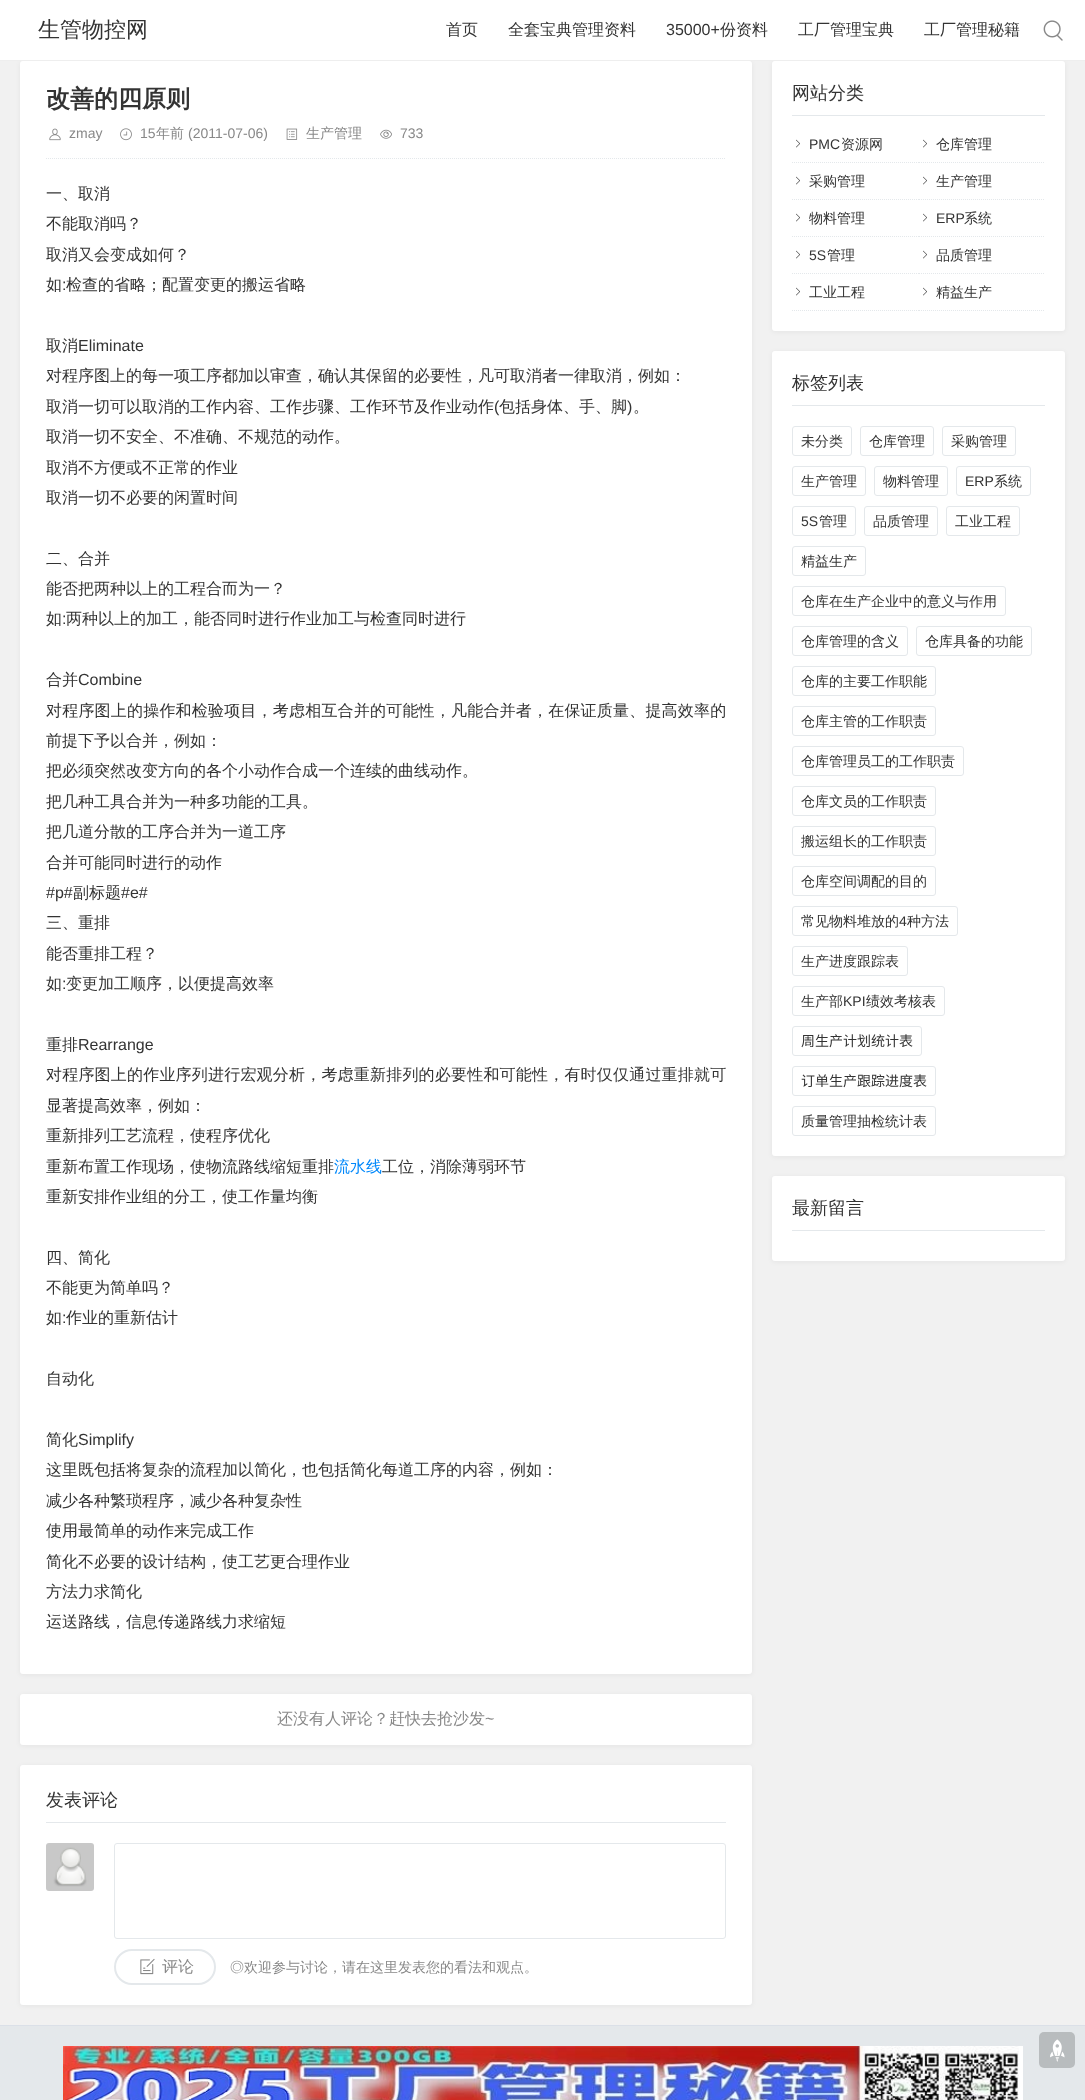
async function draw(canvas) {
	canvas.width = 1085;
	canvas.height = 2100;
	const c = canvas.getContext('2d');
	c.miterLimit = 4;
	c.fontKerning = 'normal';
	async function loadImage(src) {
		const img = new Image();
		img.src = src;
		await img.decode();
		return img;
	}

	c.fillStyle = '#e4e8eb';
	c.fillRect(0, 0, 1085, 2100);
	c.fillStyle = '#f1f1f1';
	c.fillRect(0, 61, 1085, 1964);
	c.fillStyle = '#0000000d';
	c.filter = 'blur(2.5px)';
	c.beginPath();
	c.roundRect(20, 62, 732, 1613, 3);
	c.fill();
	c.filter = 'none';
	c.filter = 'blur(2.5px)';
	c.beginPath();
	c.roundRect(772, 62, 293, 270, 3);
	c.fill();
	c.filter = 'none';
	c.fillStyle = '#fff';
	c.fillRect(0, 0, 1085, 60);
	c.fillStyle = '#eee';
	c.fillRect(0, 60, 1085, 1);
	c.font = '500 22px WenQuanYi Zen Hei';
	c.fillStyle = '#333';
	c.fillText('生管物控网', 38, 37);
	c.font = '500 16px WenQuanYi Zen Hei';
	c.fillText('首页', 446, 35);
	c.fillText('全套宝典管理资料', 508, 35);
	c.font = '16px Liberation Sans';
	c.fillText('35000+', 666, 35);
	c.font = '500 16px WenQuanYi Zen Hei';
	for (const [text, x, y] of [
		['份资料', 720, 35],
		['工厂管理宝典', 798, 35],
		['工厂管理秘籍', 924, 35],
	]) {
		c.fillText(text, x, y);
	}
	c.drawImage(await loadImage('img1.png'), 1043, 20, 20, 21);
	c.fillStyle = '#fff';
	c.beginPath();
	c.roundRect(20, 61, 732, 1613, 3);
	c.fill();
	c.font = 'bold 24px WenQuanYi Zen Hei';
	c.fillStyle = '#333';
	c.fillText('改善的四原则', 46, 107);
	c.drawImage(await loadImage('img2.png'), 49, 128, 12, 13);
	c.font = '14px Liberation Sans';
	c.fillStyle = '#888';
	c.fillText('zmay', 69, 138);
	c.drawImage(await loadImage('img3.png'), 120, 128, 12, 13);
	c.fillText('15', 140, 138);
	c.font = '500 14px WenQuanYi Zen Hei';
	c.fillText('年前', 156, 138);
	c.font = '14px Liberation Sans';
	c.fillText('(2011-07-06)', 188, 138);
	c.drawImage(await loadImage('img4.png'), 286, 128, 12, 12);
	c.font = '500 14px WenQuanYi Zen Hei';
	c.fillText('生产管理', 306, 138);
	c.drawImage(await loadImage('img5.png'), 380, 129, 12, 10);
	c.font = '14px Liberation Sans';
	c.fillText('733', 400, 138);
	c.beginPath();
	c.moveTo(46, 158.5);
	c.lineTo(726, 158.5);
	c.strokeStyle = '#e4e8eb';
	c.setLineDash([1, 1]);
	c.stroke();
	c.font = '500 16px WenQuanYi Zen Hei';
	c.fillStyle = '#333';
	for (const [text, x, y] of [
		['一、取消', 46, 199],
		['不能取消吗？', 46, 229],
		['取消又会变成如何？', 46, 260],
		['如', 46, 290],
	]) {
		c.fillText(text, x, y);
	}
	c.font = '16px Liberation Sans';
	c.fillText(':', 62, 290);
	c.font = '500 16px WenQuanYi Zen Hei';
	c.fillText('检查的省略；配置变更的搬运省略', 66, 290);
	c.fillText('取消', 46, 351);
	c.font = '16px Liberation Sans';
	c.fillText('Eliminate', 78, 351);
	c.font = '500 16px WenQuanYi Zen Hei';
	c.fillText('对程序图上的每一项工序都加以审查，确认其保留的必要性，凡可取消者一律取消，例如：', 46, 381);
	c.fillText('取消一切可以取消的工作内容、工作步骤、工作环节及作业动作', 46, 412);
	c.font = '16px Liberation Sans';
	c.fillText('(', 494, 412);
	c.font = '500 16px WenQuanYi Zen Hei';
	c.fillText('包括身体、手、脚', 499, 412);
	c.font = '16px Liberation Sans';
	c.fillText(')', 627, 412);
	c.font = '500 16px WenQuanYi Zen Hei';
	for (const [text, x, y] of [
		['。', 633, 412],
		['取消一切不安全、不准确、不规范的动作。', 46, 442],
		['取消不方便或不正常的作业', 46, 473],
		['取消一切不必要的闲置时间', 46, 503],
		['二、合并', 46, 564],
		['能否把两种以上的工程合而为一？', 46, 594],
		['如', 46, 624],
	]) {
		c.fillText(text, x, y);
	}
	c.font = '16px Liberation Sans';
	c.fillText(':', 62, 624);
	c.font = '500 16px WenQuanYi Zen Hei';
	c.fillText('两种以上的加工，能否同时进行作业加工与检查同时进行', 66, 624);
	c.fillText('合并', 46, 685);
	c.font = '16px Liberation Sans';
	c.fillText('Combine', 78, 685);
	c.letterSpacing = '0.2px';
	c.font = '500 16px WenQuanYi Zen Hei';
	c.fillText('对程序图上的操作和检验项目，考虑相互合并的可能性，凡能合并者，在保证质量、提高效率的', 46, 716);
	c.letterSpacing = '0px';
	for (const [text, x, y] of [
		['前提下予以合并，例如：', 46, 746],
		['把必须突然改变方向的各个小动作合成一个连续的曲线动作。', 46, 776],
		['把几种工具合并为一种多功能的工具。', 46, 807],
		['把几道分散的工序合并为一道工序', 46, 837],
		['合并可能同时进行的动作', 46, 868],
	]) {
		c.fillText(text, x, y);
	}
	c.font = '16px Liberation Sans';
	c.fillText('#p#', 46, 898);
	c.font = '500 16px WenQuanYi Zen Hei';
	c.fillText('副标题', 73, 898);
	c.font = '16px Liberation Sans';
	c.fillText('#e#', 121, 898);
	c.font = '500 16px WenQuanYi Zen Hei';
	for (const [text, x, y] of [
		['三、重排', 46, 928],
		['能否重排工程？', 46, 959],
		['如', 46, 989],
	]) {
		c.fillText(text, x, y);
	}
	c.font = '16px Liberation Sans';
	c.fillText(':', 62, 989);
	c.font = '500 16px WenQuanYi Zen Hei';
	c.fillText('变更加工顺序，以便提高效率', 66, 989);
	c.fillText('重排', 46, 1050);
	c.font = '16px Liberation Sans';
	c.fillText('Rearrange', 78, 1050);
	c.letterSpacing = '0.2px';
	c.font = '500 16px WenQuanYi Zen Hei';
	c.fillText('对程序图上的作业序列进行宏观分析，考虑重新排列的必要性和可能性，有时仅仅通过重排就可', 46, 1080);
	c.letterSpacing = '0px';
	for (const [text, x, y] of [
		['显著提高效率，例如：', 46, 1111],
		['重新排列工艺流程，使程序优化', 46, 1141],
		['重新布置工作现场，使物流路线缩短重排', 46, 1172],
	]) {
		c.fillText(text, x, y);
	}
	c.fillStyle = '#0188fb';
	c.fillText('流水线', 334, 1172);
	c.fillStyle = '#333';
	for (const [text, x, y] of [
		['工位，消除薄弱环节', 382, 1172],
		['重新安排作业组的分工，使工作量均衡', 46, 1202],
		['四、简化', 46, 1263],
		['不能更为简单吗？', 46, 1293],
		['如', 46, 1323],
	]) {
		c.fillText(text, x, y);
	}
	c.font = '16px Liberation Sans';
	c.fillText(':', 62, 1323);
	c.font = '500 16px WenQuanYi Zen Hei';
	for (const [text, x, y] of [
		['作业的重新估计', 66, 1323],
		['自动化', 46, 1384],
		['简化', 46, 1445],
	]) {
		c.fillText(text, x, y);
	}
	c.font = '16px Liberation Sans';
	c.fillText('Simplify', 78, 1445);
	c.font = '500 16px WenQuanYi Zen Hei';
	for (const [text, x, y] of [
		['这里既包括将复杂的流程加以简化，也包括简化每道工序的内容，例如：', 46, 1475],
		['减少各种繁琐程序，减少各种复杂性', 46, 1506],
		['使用最简单的动作来完成工作', 46, 1536],
		['简化不必要的设计结构，使工艺更合理作业', 46, 1567],
		['方法力求简化', 46, 1597],
		['运送路线，信息传递路线力求缩短', 46, 1627],
	]) {
		c.fillText(text, x, y);
	}
	c.fillStyle = '#0000000d';
	c.filter = 'blur(2.5px)';
	c.beginPath();
	c.roundRect(20, 1695, 732, 51, 3);
	c.fill();
	c.filter = 'none';
	c.fillStyle = '#fff';
	c.beginPath();
	c.roundRect(20, 1694, 732, 51, 3);
	c.fill();
	c.fillStyle = '#888';
	c.fillText('还没有人评论？赶快去抢沙发', 277, 1724);
	c.font = '16px Liberation Sans';
	c.fillText('~', 485, 1724);
	c.fillStyle = '#0000000d';
	c.filter = 'blur(2.5px)';
	c.beginPath();
	c.roundRect(20, 1766, 732, 240, 3);
	c.fill();
	c.filter = 'none';
	c.fillStyle = '#fff';
	c.beginPath();
	c.roundRect(20, 1765, 732, 240, 3);
	c.fill();
	c.fillStyle = '#e4e8eb';
	c.fillRect(46, 1822, 680, 1);
	c.font = '500 18px WenQuanYi Zen Hei';
	c.fillStyle = '#333';
	c.fillText('发表评论', 46, 1806);
	c.drawImage(await loadImage('img6.png'), 46, 1843, 48, 48);
	c.beginPath();
	c.roundRect(114.5, 1843.5, 611, 95, 2.5);
	c.setLineDash([]);
	c.stroke();
	c.beginPath();
	c.roundRect(115, 1950, 100, 34, 17);
	c.lineWidth = 2;
	c.stroke();
	c.drawImage(await loadImage('img7.png'), 140, 1958, 15, 17);
	c.font = '500 16px WenQuanYi Zen Hei';
	c.fillStyle = '#888';
	c.fillText('评论', 162, 1972);
	c.font = '500 14px WenQuanYi Zen Hei';
	c.fillText('◎欢迎参与讨论，请在这里发表您的看法和观点。', 230, 1972);
	c.fillStyle = '#fff';
	c.beginPath();
	c.roundRect(772, 61, 293, 270, 3);
	c.fill();
	c.fillStyle = '#e4e8eb';
	c.fillRect(792, 115, 253, 1);
	c.font = '500 18px WenQuanYi Zen Hei';
	c.fillStyle = '#333';
	c.fillText('网站分类', 792, 99);
	c.beginPath();
	c.moveTo(792, 162.5);
	c.lineTo(919, 162.5);
	c.lineWidth = 1;
	c.setLineDash([1, 1]);
	c.stroke();
	c.drawImage(await loadImage('img8.png'), 796, 139, 4, 9);
	c.font = '14px Liberation Sans';
	c.fillText('PMC', 809, 149);
	c.font = '500 14px WenQuanYi Zen Hei';
	c.fillText('资源网', 841, 149);
	c.beginPath();
	c.moveTo(919, 162.5);
	c.lineTo(1045, 162.5);
	c.stroke();
	c.drawImage(await loadImage('img8.png'), 923, 139, 4, 9);
	c.fillText('仓库管理', 936, 149);
	c.beginPath();
	c.moveTo(792, 199.5);
	c.lineTo(919, 199.5);
	c.stroke();
	c.drawImage(await loadImage('img8.png'), 796, 176, 4, 9);
	c.fillText('采购管理', 809, 186);
	c.beginPath();
	c.moveTo(919, 199.5);
	c.lineTo(1045, 199.5);
	c.stroke();
	c.drawImage(await loadImage('img8.png'), 923, 176, 4, 9);
	c.fillText('生产管理', 936, 186);
	c.beginPath();
	c.moveTo(792, 236.5);
	c.lineTo(919, 236.5);
	c.stroke();
	c.drawImage(await loadImage('img8.png'), 796, 213, 4, 9);
	c.fillText('物料管理', 809, 223);
	c.beginPath();
	c.moveTo(919, 236.5);
	c.lineTo(1045, 236.5);
	c.stroke();
	c.drawImage(await loadImage('img8.png'), 923, 213, 4, 9);
	c.font = '14px Liberation Sans';
	c.fillText('ERP', 936, 223);
	c.font = '500 14px WenQuanYi Zen Hei';
	c.fillText('系统', 964, 223);
	c.beginPath();
	c.moveTo(792, 273.5);
	c.lineTo(919, 273.5);
	c.stroke();
	c.drawImage(await loadImage('img8.png'), 796, 250, 4, 9);
	c.font = '14px Liberation Sans';
	c.fillText('5S', 809, 260);
	c.font = '500 14px WenQuanYi Zen Hei';
	c.fillText('管理', 827, 260);
	c.beginPath();
	c.moveTo(919, 273.5);
	c.lineTo(1045, 273.5);
	c.stroke();
	c.drawImage(await loadImage('img8.png'), 923, 250, 4, 9);
	c.fillText('品质管理', 936, 260);
	c.beginPath();
	c.moveTo(792, 310.5);
	c.lineTo(919, 310.5);
	c.stroke();
	c.drawImage(await loadImage('img8.png'), 796, 287, 4, 9);
	c.fillText('工业工程', 809, 297);
	c.beginPath();
	c.moveTo(919, 310.5);
	c.lineTo(1045, 310.5);
	c.stroke();
	c.drawImage(await loadImage('img8.png'), 923, 287, 4, 9);
	c.fillText('精益生产', 936, 297);
	c.fillStyle = '#0000000d';
	c.filter = 'blur(2.5px)';
	c.beginPath();
	c.roundRect(772, 352, 293, 805, 3);
	c.fill();
	c.filter = 'none';
	c.fillStyle = '#fff';
	c.beginPath();
	c.roundRect(772, 351, 293, 805, 3);
	c.fill();
	c.fillStyle = '#e4e8eb';
	c.fillRect(792, 405, 253, 1);
	c.font = '500 18px WenQuanYi Zen Hei';
	c.fillStyle = '#333';
	c.fillText('标签列表', 792, 389);
	c.beginPath();
	c.roundRect(792.5, 426.5, 59, 29, 2.5);
	c.setLineDash([]);
	c.stroke();
	c.font = '500 14px WenQuanYi Zen Hei';
	c.fillText('未分类', 801, 446);
	c.beginPath();
	c.roundRect(860.5, 426.5, 73, 29, 2.5);
	c.stroke();
	c.fillText('仓库管理', 869, 446);
	c.beginPath();
	c.roundRect(942.5, 426.5, 73, 29, 2.5);
	c.stroke();
	c.fillText('采购管理', 951, 446);
	c.beginPath();
	c.roundRect(792.5, 466.5, 73, 29, 2.5);
	c.stroke();
	c.fillText('生产管理', 801, 486);
	c.beginPath();
	c.roundRect(874.5, 466.5, 73, 29, 2.5);
	c.stroke();
	c.fillText('物料管理', 883, 486);
	c.beginPath();
	c.roundRect(956.5, 466.5, 74, 29, 2.5);
	c.stroke();
	c.font = '14px Liberation Sans';
	c.fillText('ERP', 965, 486);
	c.font = '500 14px WenQuanYi Zen Hei';
	c.fillText('系统', 994, 486);
	c.beginPath();
	c.roundRect(792.5, 506.5, 63, 29, 2.5);
	c.stroke();
	c.font = '14px Liberation Sans';
	c.fillText('5S', 801, 526);
	c.font = '500 14px WenQuanYi Zen Hei';
	c.fillText('管理', 819, 526);
	c.beginPath();
	c.roundRect(864.5, 506.5, 73, 29, 2.5);
	c.stroke();
	c.fillText('品质管理', 873, 526);
	c.beginPath();
	c.roundRect(946.5, 506.5, 73, 29, 2.5);
	c.stroke();
	c.fillText('工业工程', 955, 526);
	c.beginPath();
	c.roundRect(792.5, 546.5, 73, 29, 2.5);
	c.stroke();
	c.fillText('精益生产', 801, 566);
	c.beginPath();
	c.roundRect(792.5, 586.5, 213, 29, 2.5);
	c.stroke();
	c.fillText('仓库在生产企业中的意义与作用', 801, 606);
	c.beginPath();
	c.roundRect(792.5, 626.5, 115, 29, 2.5);
	c.stroke();
	c.fillText('仓库管理的含义', 801, 646);
	c.beginPath();
	c.roundRect(916.5, 626.5, 115, 29, 2.5);
	c.stroke();
	c.fillText('仓库具备的功能', 925, 646);
	c.beginPath();
	c.roundRect(792.5, 666.5, 143, 29, 2.5);
	c.stroke();
	c.fillText('仓库的主要工作职能', 801, 686);
	c.beginPath();
	c.roundRect(792.5, 706.5, 143, 29, 2.5);
	c.stroke();
	c.fillText('仓库主管的工作职责', 801, 726);
	c.beginPath();
	c.roundRect(792.5, 746.5, 171, 29, 2.5);
	c.stroke();
	c.fillText('仓库管理员工的工作职责', 801, 766);
	c.beginPath();
	c.roundRect(792.5, 786.5, 143, 29, 2.5);
	c.stroke();
	c.fillText('仓库文员的工作职责', 801, 806);
	c.beginPath();
	c.roundRect(792.5, 826.5, 143, 29, 2.5);
	c.stroke();
	c.fillText('搬运组长的工作职责', 801, 846);
	c.beginPath();
	c.roundRect(792.5, 866.5, 143, 29, 2.5);
	c.stroke();
	c.fillText('仓库空间调配的目的', 801, 886);
	c.beginPath();
	c.roundRect(792.5, 906.5, 165, 29, 2.5);
	c.stroke();
	c.fillText('常见物料堆放的', 801, 926);
	c.font = '14px Liberation Sans';
	c.fillText('4', 899, 926);
	c.font = '500 14px WenQuanYi Zen Hei';
	c.fillText('种方法', 907, 926);
	c.beginPath();
	c.roundRect(792.5, 946.5, 115, 29, 2.5);
	c.stroke();
	c.fillText('生产进度跟踪表', 801, 966);
	c.beginPath();
	c.roundRect(792.5, 986.5, 152, 29, 2.5);
	c.stroke();
	c.fillText('生产部', 801, 1006);
	c.font = '14px Liberation Sans';
	c.fillText('KPI', 843, 1006);
	c.font = '500 14px WenQuanYi Zen Hei';
	c.fillText('绩效考核表', 866, 1006);
	c.beginPath();
	c.roundRect(792.5, 1026.5, 129, 29, 2.5);
	c.stroke();
	c.font = '14px Noto Sans CJK SC';
	c.fillText('周生产计划统计表', 801, 1046);
	c.beginPath();
	c.roundRect(792.5, 1066.5, 143, 29, 2.5);
	c.stroke();
	c.fillText('订单生产跟踪进度表', 801, 1086);
	c.beginPath();
	c.roundRect(792.5, 1106.5, 143, 29, 2.5);
	c.stroke();
	c.font = '500 14px WenQuanYi Zen Hei';
	c.fillText('质量管理抽检统计表', 801, 1126);
	c.fillStyle = '#0000000d';
	c.filter = 'blur(2.5px)';
	c.beginPath();
	c.roundRect(772, 1177, 293, 85, 3);
	c.fill();
	c.filter = 'none';
	c.fillStyle = '#fff';
	c.beginPath();
	c.roundRect(772, 1176, 293, 85, 3);
	c.fill();
	c.fillStyle = '#e4e8eb';
	c.fillRect(792, 1230, 253, 1);
	c.font = '500 18px WenQuanYi Zen Hei';
	c.fillStyle = '#333';
	c.fillText('最新留言', 792, 1214);
	c.fillStyle = '#dbe0e8';
	c.fillRect(0, 2025, 1085, 1);
	c.drawImage(await loadImage('img9.png'), 63, 2046, 960, 54);
	c.fillStyle = '#b8bcbe';
	c.beginPath();
	c.roundRect(1039, 2032, 36, 36, 5);
	c.fill();
	c.drawImage(await loadImage('img10.png'), 1050, 2039, 15, 23);
}

draw(document.querySelector('canvas'));
